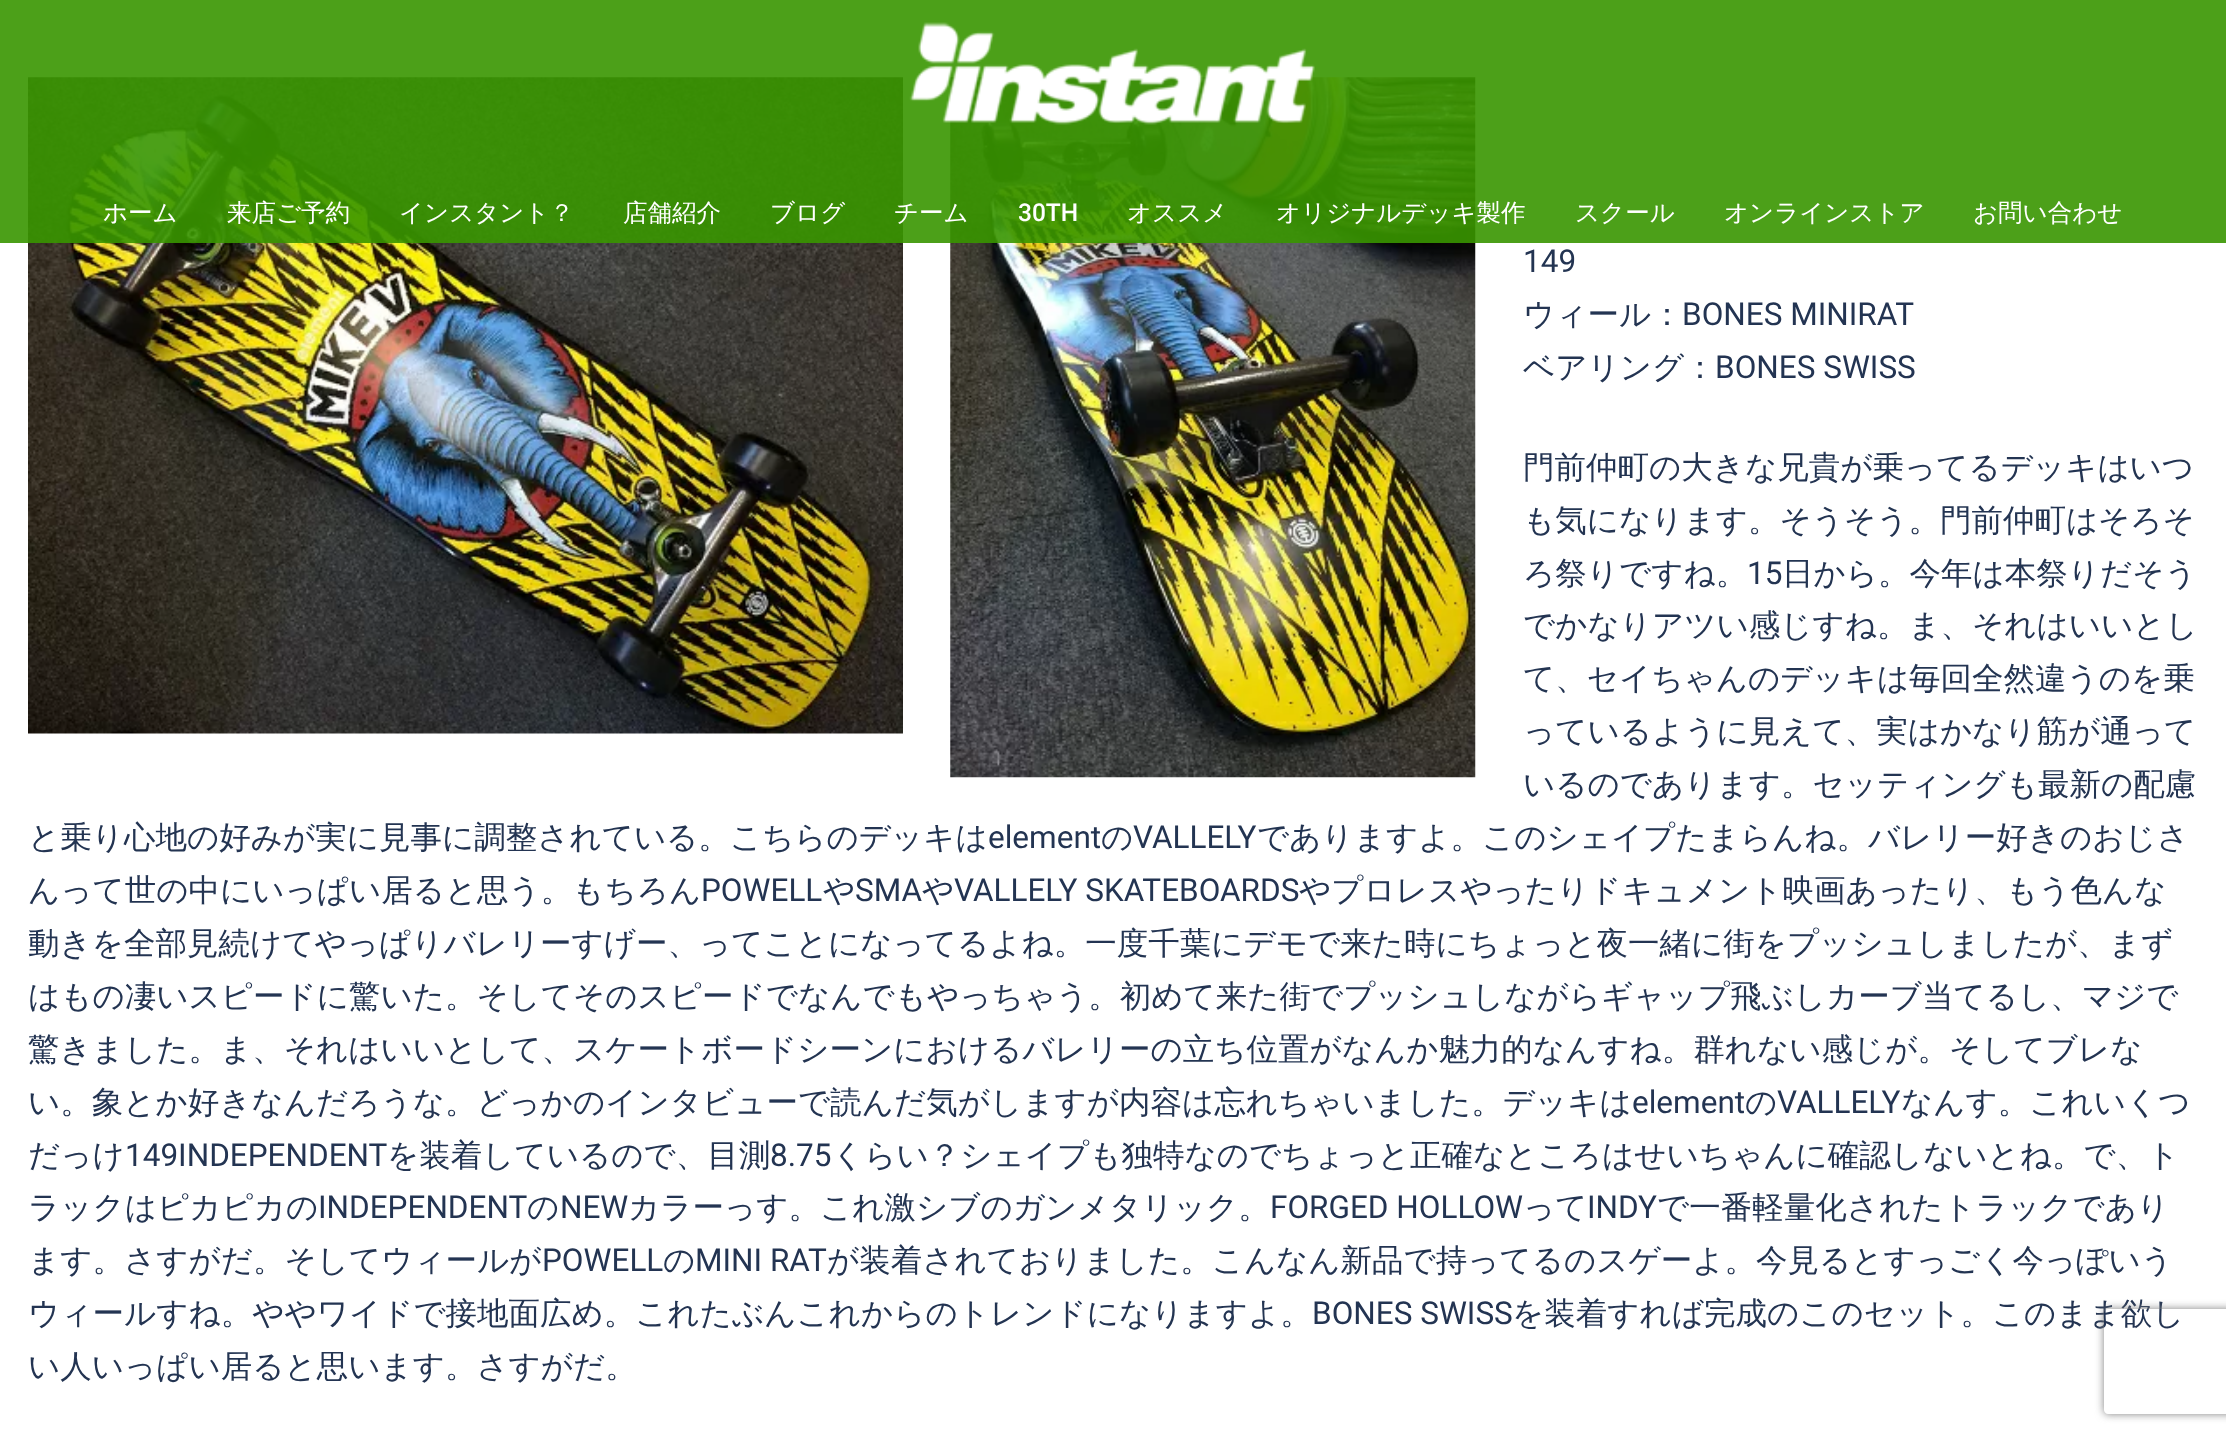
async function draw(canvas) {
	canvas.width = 2226;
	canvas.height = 1437;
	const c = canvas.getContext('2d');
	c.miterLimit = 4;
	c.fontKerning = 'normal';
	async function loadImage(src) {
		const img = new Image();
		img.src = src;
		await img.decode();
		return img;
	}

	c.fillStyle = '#fff';
	c.fillRect(0, 0, 2226, 1437);
	c.drawImage(await loadImage('img2.png'), 28, 77, 875, 657);
	c.drawImage(await loadImage('img3.png'), 950, 77, 526, 701);
	c.fillStyle = '#399600e6';
	c.fillRect(0, 0, 2226, 243);
	c.drawImage(await loadImage('img1.png'), 909, 22, 406, 103);
	c.font = '500 24.5px WenQuanYi Zen Hei';
	c.fillStyle = '#fff';
	for (const [text, x, y] of [
		['ホーム', 103, 221],
		['来店ご予約', 227, 221],
		['インスタント？', 399, 221],
		['店舗紹介', 623, 221],
		['ブログ', 770, 221],
		['チーム', 894, 221],
	]) {
		c.fillText(text, x, y);
	}
	c.font = '500 24.5px Roboto';
	c.fillText('30TH', 1018, 221);
	c.font = '500 24.5px WenQuanYi Zen Hei';
	for (const [text, x, y] of [
		['オススメ', 1127, 221],
		['オリジナルデッキ製作', 1276, 221],
		['スクール', 1575, 221],
		['オンラインストア', 1724, 221],
		['お問い合わせ', 1973, 221],
	]) {
		c.fillText(text, x, y);
	}
	c.font = '31.5px Roboto';
	c.fillStyle = '#233452';
	c.fillText('149', 1523, 272);
	c.font = '500 31.5px WenQuanYi Zen Hei';
	c.fillText('ウィール：', 1523, 325);
	c.font = '31.5px Roboto';
	c.fillText('BONES MINIRAT', 1682, 325);
	c.font = '500 31.5px WenQuanYi Zen Hei';
	c.fillText('ベアリング：', 1523, 378);
	c.font = '31.5px Roboto';
	c.fillText('BONES SWISS', 1715, 378);
	c.font = '500 31.5px WenQuanYi Zen Hei';
	for (const [text, x, y] of [
		['門前仲町の大きな兄貴が乗ってるデッキはいつ', 1523, 478],
		['も気になります。そうそう。門前仲町はそろそ', 1523, 531],
		['ろ祭りですね。', 1523, 584],
	]) {
		c.fillText(text, x, y);
	}
	c.font = '31.5px Roboto';
	c.fillText('15', 1747, 584);
	c.font = '500 31.5px WenQuanYi Zen Hei';
	for (const [text, x, y] of [
		['日から。今年は本祭りだそう', 1782, 584],
		['でかなりアツい感じすね。ま、それはいいとし', 1523, 636],
		['て、セイちゃんのデッキは毎回全然違うのを乗', 1523, 689],
		['っているように見えて、実はかなり筋が通って', 1523, 742],
		['いるのであります。セッティングも最新の配慮', 1523, 795],
		['と乗り心地の好みが実に見事に調整されている。こちらのデッキは', 28, 848],
	]) {
		c.fillText(text, x, y);
	}
	c.font = '31.5px Roboto';
	c.fillText('element', 988, 848);
	c.font = '500 31.5px WenQuanYi Zen Hei';
	c.fillText('の', 1101, 848);
	c.font = '31.5px Roboto';
	c.fillText('VALLELY', 1133, 848);
	c.font = '500 31.5px WenQuanYi Zen Hei';
	c.fillText('でありますよ。このシェイプたまらんね。バレリー好きのおじさ', 1257, 848);
	c.fillText('んって世の中にいっぱい居ると思う。もちろん', 28, 901);
	c.font = '31.5px Roboto';
	c.fillText('POWELL', 701, 901);
	c.font = '500 31.5px WenQuanYi Zen Hei';
	c.fillText('や', 823, 901);
	c.font = '31.5px Roboto';
	c.fillText('SMA', 855, 901);
	c.font = '500 31.5px WenQuanYi Zen Hei';
	c.fillText('や', 922, 901);
	c.font = '31.5px Roboto';
	c.fillText('VALLELY SKATEBOARDS', 954, 901);
	c.font = '500 31.5px WenQuanYi Zen Hei';
	for (const [text, x, y] of [
		['やプロレスやったりドキュメント映画あったり、もう色んな', 1299, 901],
		['動きを全部見続けてやっぱりバレリーすげー、ってことになってるよね。一度千葉にデモで来た時にちょっと夜一緒に街をプッシュしましたが、まず', 28, 954],
		['はもの凄いスピードに驚いた。そしてそのスピードでなんでもやっちゃう。初めて来た街でプッシュしながらギャップ飛ぶしカーブ当てるし、マジで', 28, 1007],
		['驚きました。ま、それはいいとして、スケートボードシーンにおけるバレリーの立ち位置がなんか魅力的なんすね。群れない感じが。そしてブレな', 28, 1060],
		['い。象とか好きなんだろうな。どっかのインタビューで読んだ気がしますが内容は忘れちゃいました。デッキは', 28, 1113],
	]) {
		c.fillText(text, x, y);
	}
	c.font = '31.5px Roboto';
	c.fillText('element', 1632, 1113);
	c.font = '500 31.5px WenQuanYi Zen Hei';
	c.fillText('の', 1745, 1113);
	c.font = '31.5px Roboto';
	c.fillText('VALLELY', 1777, 1113);
	c.font = '500 31.5px WenQuanYi Zen Hei';
	c.fillText('なんす。これいくつ', 1901, 1113);
	c.fillText('だっけ', 28, 1166);
	c.font = '31.5px Roboto';
	c.fillText('149INDEPENDENT', 125, 1166);
	c.font = '500 31.5px WenQuanYi Zen Hei';
	c.fillText('を装着しているので、目測', 387, 1166);
	c.font = '31.5px Roboto';
	c.fillText('8.75', 770, 1166);
	c.font = '500 31.5px WenQuanYi Zen Hei';
	c.fillText('くらい？シェイプも独特なのでちょっと正確なところはせいちゃんに確認しないとね。で、ト', 832, 1166);
	c.fillText('ラックはピカピカの', 28, 1218);
	c.font = '31.5px Roboto';
	c.fillText('INDEPENDENT', 318, 1218);
	c.font = '500 31.5px WenQuanYi Zen Hei';
	c.fillText('の', 527, 1218);
	c.font = '31.5px Roboto';
	c.fillText('NEW', 560, 1218);
	c.font = '500 31.5px WenQuanYi Zen Hei';
	c.fillText('カラーっす。これ激シブのガンメタリック。', 628, 1218);
	c.font = '31.5px Roboto';
	c.fillText('FORGED HOLLOW', 1270, 1218);
	c.font = '500 31.5px WenQuanYi Zen Hei';
	c.fillText('って', 1523, 1218);
	c.font = '31.5px Roboto';
	c.fillText('INDY', 1587, 1218);
	c.font = '500 31.5px WenQuanYi Zen Hei';
	c.fillText('で一番軽量化されたトラックであり', 1657, 1218);
	c.fillText('ます。さすがだ。そしてウィールが', 28, 1271);
	c.font = '31.5px Roboto';
	c.fillText('POWELL', 542, 1271);
	c.font = '500 31.5px WenQuanYi Zen Hei';
	c.fillText('の', 663, 1271);
	c.font = '31.5px Roboto';
	c.fillText('MINI RAT', 695, 1271);
	c.font = '500 31.5px WenQuanYi Zen Hei';
	c.fillText('が装着されておりました。こんなん新品で持ってるのスゲーよ。今見るとすっごく今っぽいう', 827, 1271);
	c.fillText('ウィールすね。ややワイドで接地面広め。これたぶんこれからのトレンドになりますよ。', 28, 1324);
	c.font = '31.5px Roboto';
	c.fillText('BONES SWISS', 1312, 1324);
	c.font = '500 31.5px WenQuanYi Zen Hei';
	c.fillText('を装着すれば完成のこのセット。このまま欲し', 1512, 1324);
	c.fillText('い人いっぱい居ると思います。さすがだ。', 28, 1377);
	c.save();
	c.beginPath();
	c.moveTo(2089, 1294);
	c.lineTo(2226, 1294);
	c.lineTo(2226, 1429);
	c.lineTo(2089, 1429);
	c.closePath();
	c.moveTo(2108, 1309);
	c.lineTo(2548, 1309);
	c.bezierCurveTo(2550, 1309, 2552, 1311, 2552, 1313);
	c.lineTo(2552, 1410);
	c.bezierCurveTo(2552, 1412, 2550, 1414, 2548, 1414);
	c.lineTo(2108, 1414);
	c.bezierCurveTo(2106, 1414, 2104, 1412, 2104, 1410);
	c.lineTo(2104, 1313);
	c.bezierCurveTo(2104, 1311, 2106, 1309, 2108, 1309);
	c.closePath();
	c.clip('evenodd');
	c.fillStyle = '#808080';
	c.filter = 'blur(4.5px)';
	c.beginPath();
	c.roundRect(2104, 1309, 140, 105, 4);
	c.fill();
	c.filter = 'none';
	c.restore();
}

draw(document.querySelector('canvas'));
